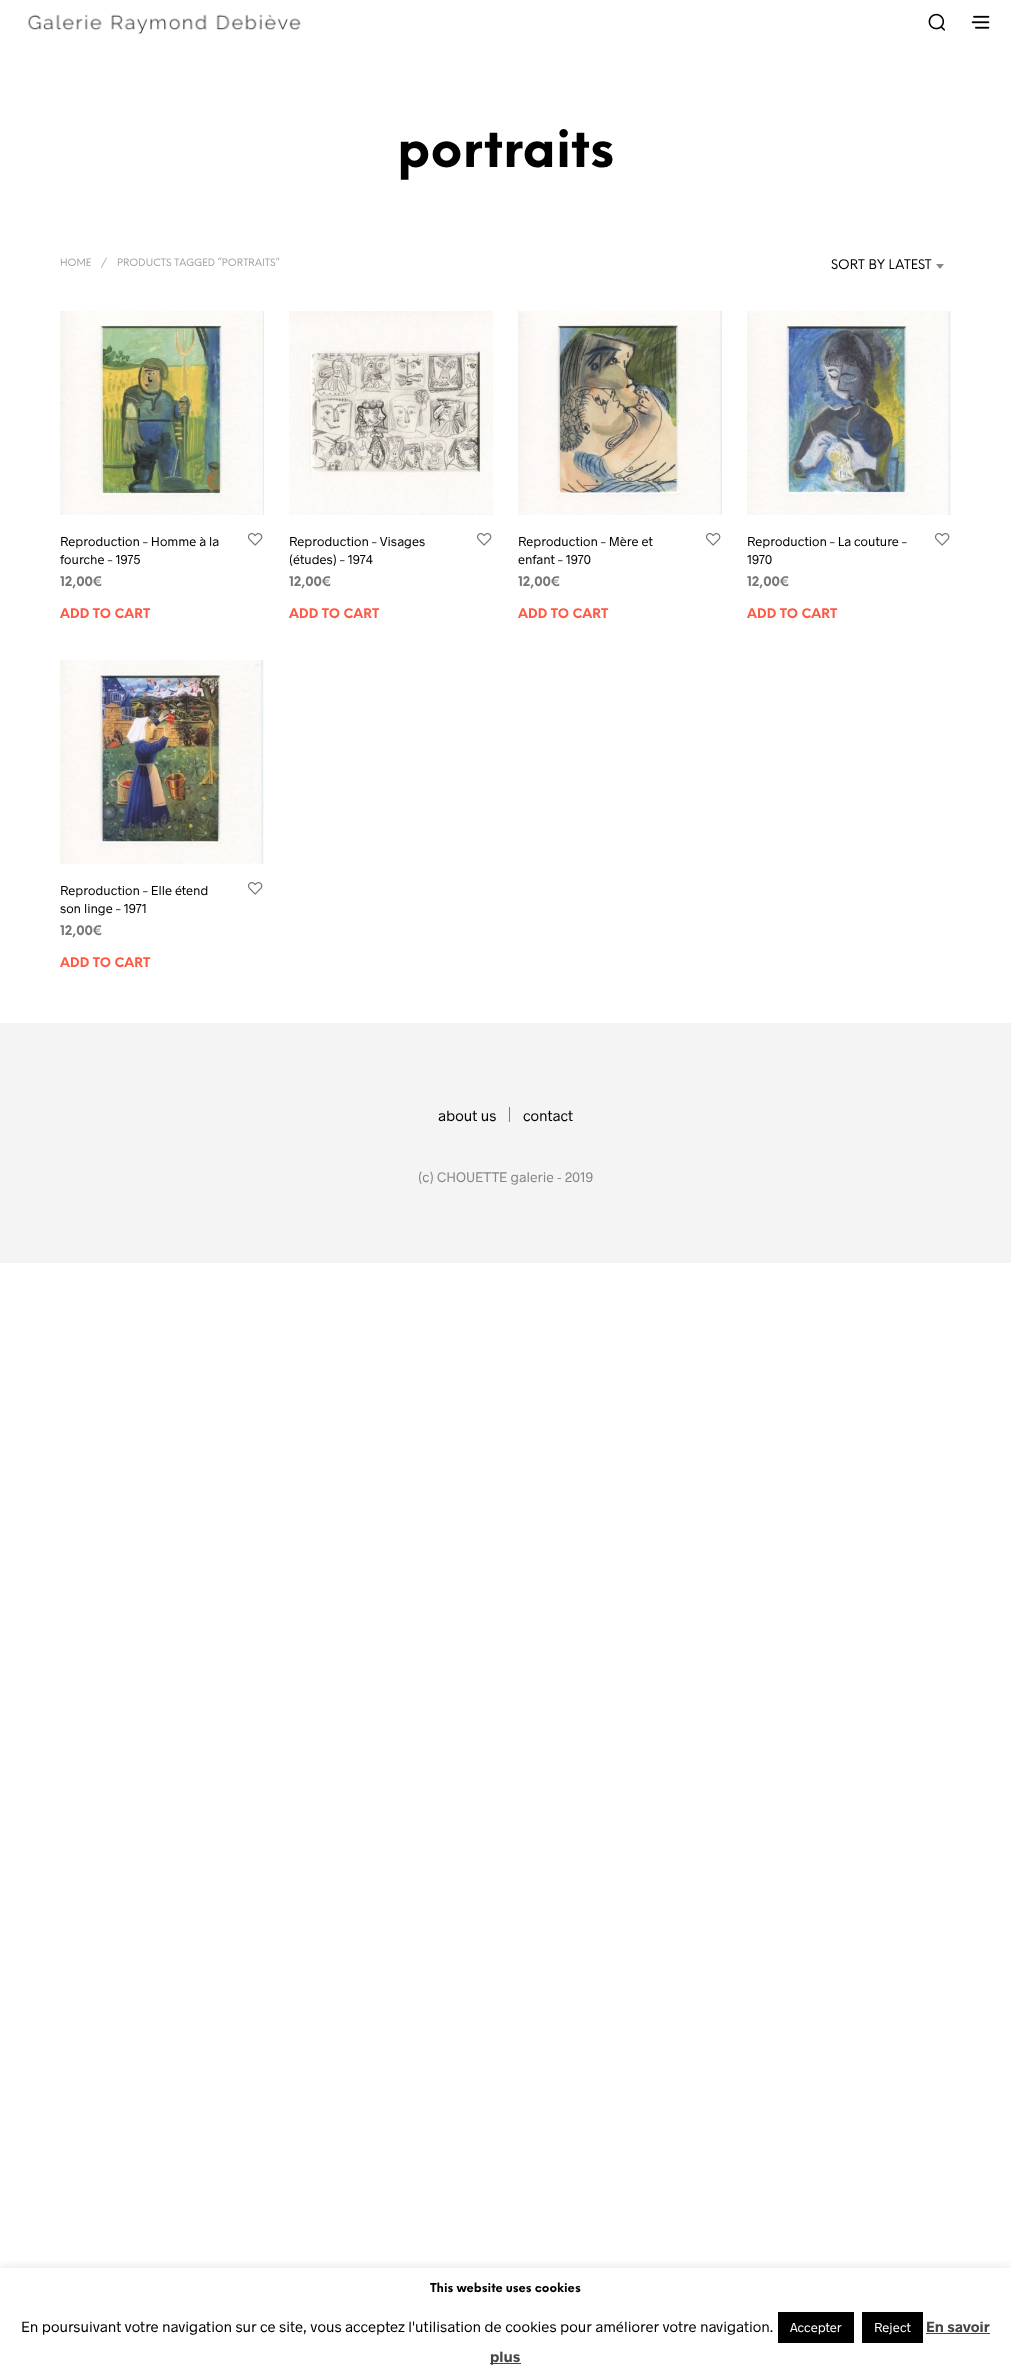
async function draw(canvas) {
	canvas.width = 1011;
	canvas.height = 2379;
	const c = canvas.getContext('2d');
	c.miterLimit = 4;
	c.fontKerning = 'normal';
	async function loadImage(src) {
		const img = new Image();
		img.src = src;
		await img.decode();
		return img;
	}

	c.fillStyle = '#fff';
	c.fillRect(0, 0, 1011, 2379);
	c.drawImage(await loadImage('img1.png'), 28, 14, 273, 20);
	c.drawImage(await loadImage('img2.png'), 928, 13, 17, 18);
	c.drawImage(await loadImage('img3.png'), 971, 15, 19, 14);
	c.font = 'bold 50.5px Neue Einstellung';
	c.fillStyle = '#000';
	c.fillText('portraits', 397, 167);
	c.font = '10px Neue Einstellung';
	c.fillStyle = '#a1a1a1';
	for (const [text, x, y] of [
		['HOME', 60, 266],
		['/', 101, 266],
		['PRODUCTS TAGGED “PORTRAITS”', 117, 266],
	]) {
		c.fillText(text, x, y);
	}
	c.font = '13px Neue Einstellung';
	c.fillStyle = '#000';
	c.fillText('SORT BY LATEST', 831, 269);
	c.fillStyle = '#888';
	c.beginPath();
	c.moveTo(936, 264);
	c.lineTo(944, 264);
	c.lineTo(940, 269);
	c.closePath();
	c.fill();
	c.drawImage(await loadImage('img4.png'), 60, 311, 204, 204);
	c.drawImage(await loadImage('img5.png'), 247, 533, 16, 13);
	c.font = '13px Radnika';
	c.fillStyle = '#000';
	c.fillText('Reproduction – Homme à la', 60, 546);
	c.fillText('fourche – 1975', 60, 564);
	c.font = 'bold 13px Neue Einstellung';
	c.fillStyle = '#767676';
	c.fillText('12,00€', 60, 586);
	c.fillStyle = '#ff5943';
	c.fillText('ADD TO CART', 60, 618);
	c.drawImage(await loadImage('img6.png'), 289, 311, 204, 204);
	c.drawImage(await loadImage('img5.png'), 476, 533, 16, 13);
	c.font = '13px Radnika';
	c.fillStyle = '#000';
	c.fillText('Reproduction – Visages', 289, 546);
	c.fillText('(études) – 1974', 289, 564);
	c.font = 'bold 13px Neue Einstellung';
	c.fillStyle = '#767676';
	c.fillText('12,00€', 289, 586);
	c.fillStyle = '#ff5943';
	c.fillText('ADD TO CART', 289, 618);
	c.drawImage(await loadImage('img7.png'), 518, 311, 204, 204);
	c.drawImage(await loadImage('img5.png'), 705, 533, 16, 13);
	c.font = '13px Radnika';
	c.fillStyle = '#000';
	c.fillText('Reproduction – Mère et', 518, 546);
	c.fillText('enfant – 1970', 518, 564);
	c.font = 'bold 13px Neue Einstellung';
	c.fillStyle = '#767676';
	c.fillText('12,00€', 518, 586);
	c.fillStyle = '#ff5943';
	c.fillText('ADD TO CART', 518, 618);
	c.drawImage(await loadImage('img8.png'), 747, 311, 204, 204);
	c.drawImage(await loadImage('img5.png'), 934, 533, 16, 13);
	c.font = '13px Radnika';
	c.fillStyle = '#000';
	c.fillText('Reproduction – La couture –', 747, 546);
	c.fillText('1970', 747, 564);
	c.font = 'bold 13px Neue Einstellung';
	c.fillStyle = '#767676';
	c.fillText('12,00€', 747, 586);
	c.fillStyle = '#ff5943';
	c.fillText('ADD TO CART', 747, 618);
	c.drawImage(await loadImage('img9.png'), 60, 660, 204, 204);
	c.drawImage(await loadImage('img5.png'), 247, 882, 16, 13);
	c.font = '13px Radnika';
	c.fillStyle = '#000';
	c.fillText('Reproduction – Elle étend', 60, 895);
	c.fillText('son linge – 1971', 60, 913);
	c.font = 'bold 13px Neue Einstellung';
	c.fillStyle = '#767676';
	c.fillText('12,00€', 60, 935);
	c.fillStyle = '#ff5943';
	c.fillText('ADD TO CART', 60, 967);
	c.fillStyle = '#f4f4f4';
	c.fillRect(0, 1023, 1011, 240);
	c.font = '15px Radnika';
	c.fillStyle = '#000';
	c.fillText('about us', 438, 1121);
	c.fillStyle = '#7a7a7a';
	c.fillRect(509, 1107, 1, 15);
	c.fillStyle = '#000';
	c.fillText('contact', 523, 1121);
	c.font = '14px Radnika';
	c.fillStyle = '#868686';
	c.fillText('(c) CHOUETTE galerie - 2019', 418, 1182);
	c.save();
	c.beginPath();
	c.rect(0, 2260, 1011, 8);
	c.clip();
	c.fillStyle = '#acabab4d';
	c.filter = 'blur(5px)';
	c.beginPath();
	c.rect(0, 2267, 1011, 111);
	c.fill();
	c.filter = 'none';
	c.restore();
	c.font = 'bold 12px Neue Einstellung';
	c.fillStyle = '#000';
	c.fillText('This website uses cookies', 430, 2292);
	c.font = '15px Radnika';
	c.fillText('En poursuivant votre navigation sur ce site, vous acceptez l\'utilisation de cookies pour améliorer votre navigation.', 21, 2332);
	c.fillRect(778, 2312, 76, 31);
	c.font = '13px Radnika';
	c.fillStyle = '#fff';
	c.fillText('Accepter', 790, 2332);
	c.fillStyle = '#000';
	c.fillRect(862, 2312, 61, 31);
	c.fillStyle = '#fff';
	c.fillText('Reject', 874, 2332);
	c.font = 'bold 15px Radnika';
	c.fillStyle = '#444';
	c.fillText('En savoir', 926, 2332);
	c.fillRect(926, 2333, 64, 1);
	c.fillRect(490, 2363, 31, 1);
	c.fillText('plus', 490, 2362);
}

draw(document.querySelector('canvas'));
